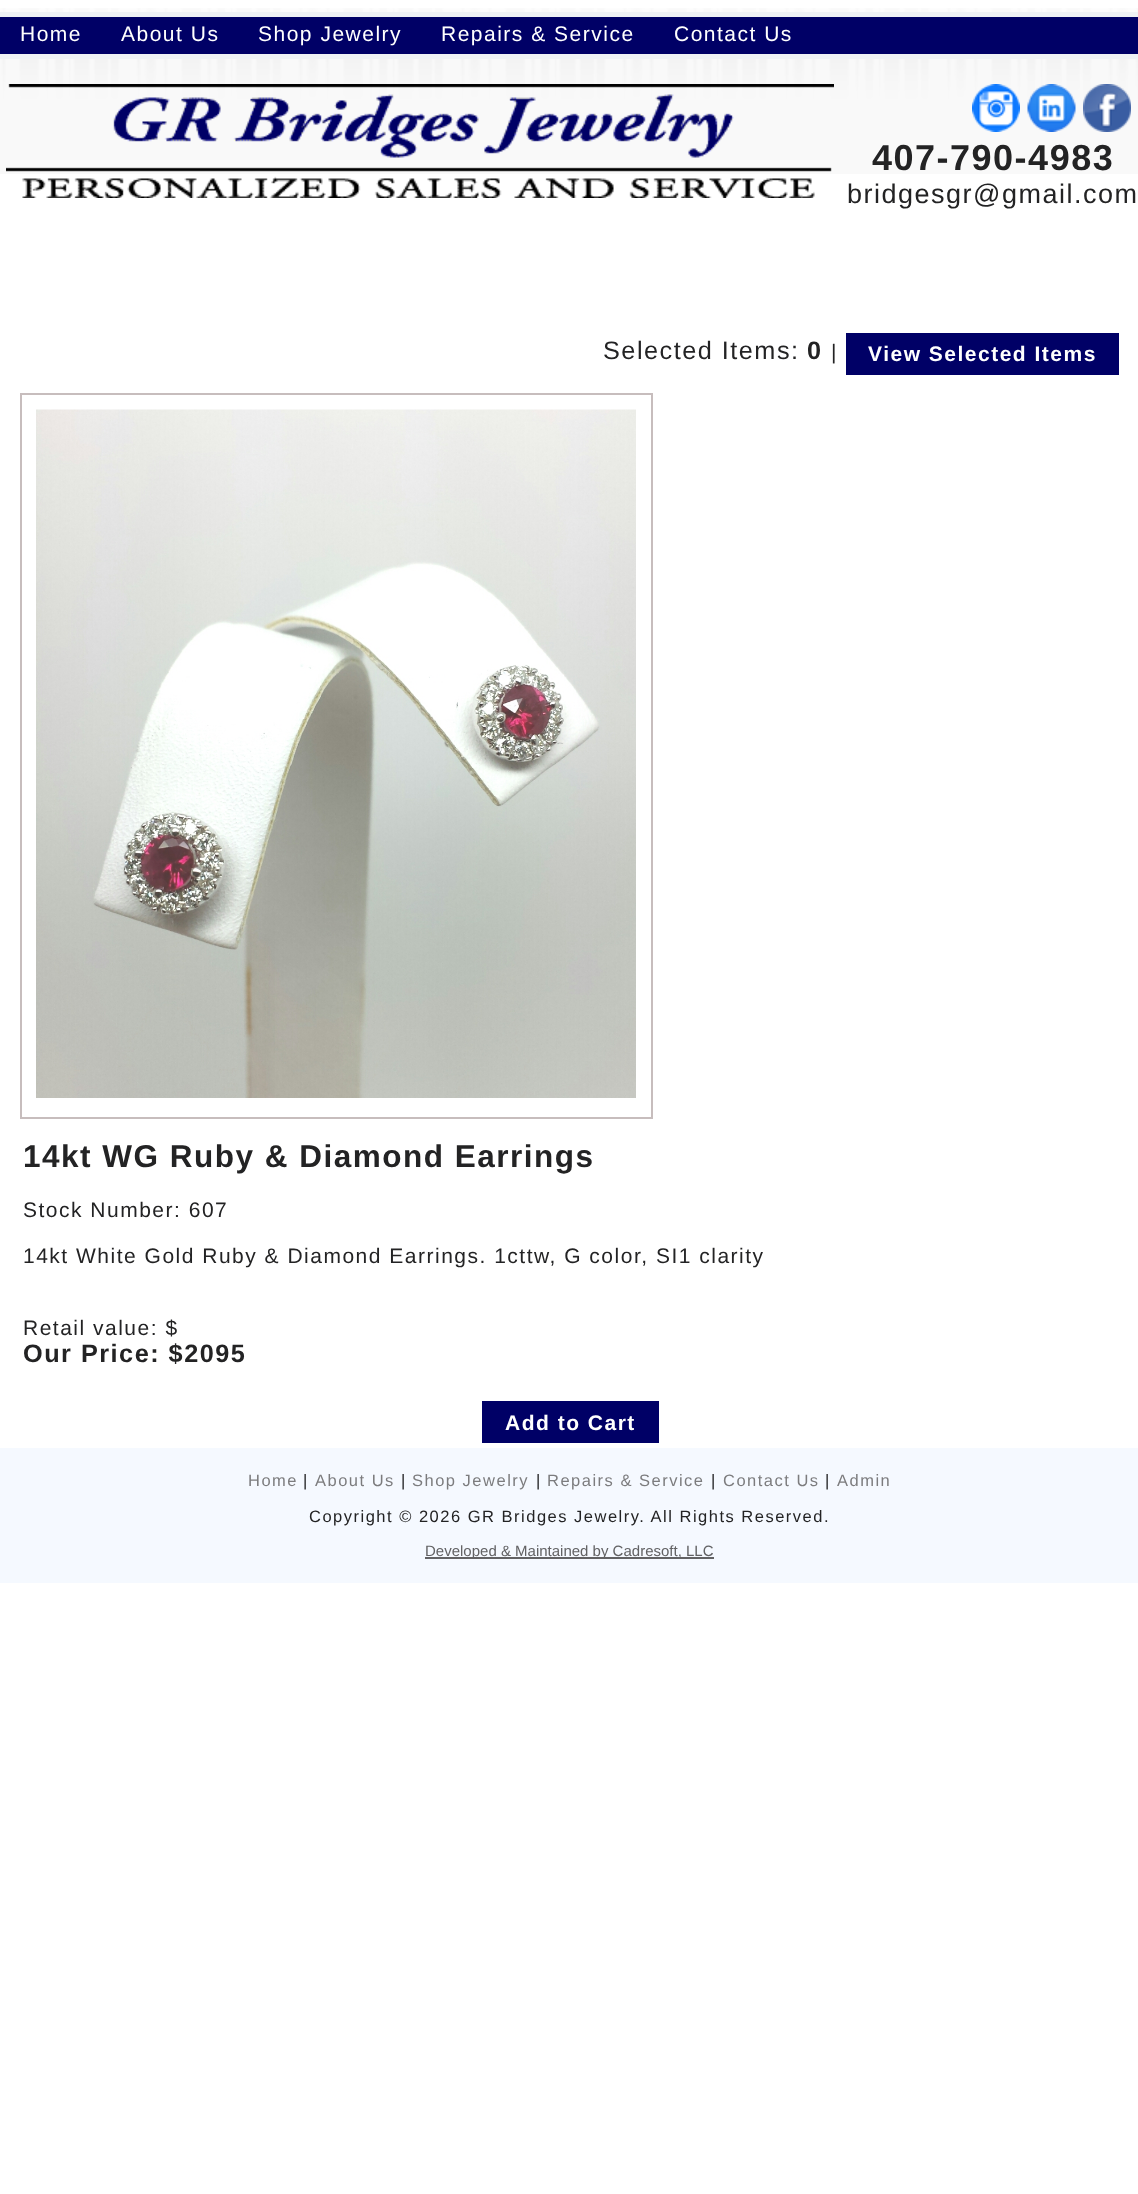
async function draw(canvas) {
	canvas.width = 1138;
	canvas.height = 2194;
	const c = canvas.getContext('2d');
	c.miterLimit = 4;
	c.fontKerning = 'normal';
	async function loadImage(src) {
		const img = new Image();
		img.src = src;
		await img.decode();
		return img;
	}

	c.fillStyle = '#fff';
	c.fillRect(0, 0, 1138, 2194);
	c.drawImage(await loadImage('img1.png'), 0, 8, 1138, 166);
	c.fillStyle = '#eff2f5';
	c.fillRect(0, 12, 1138, 47);
	c.fillStyle = '#006';
	c.fillRect(0, 17, 1138, 37);
	c.letterSpacing = '1.5px';
	c.font = '21px Liberation Sans';
	c.fillStyle = '#fff';
	for (const [text, x, y] of [
		['Home', 20, 41],
		['About Us', 121, 41],
		['Shop Jewelry', 258, 41],
		['Repairs & Service', 441, 41],
		['Contact Us', 674, 41],
	]) {
		c.fillText(text, x, y);
	}
	c.drawImage(await loadImage('img2.png'), 6, 84, 828, 114);
	c.drawImage(await loadImage('img3.png'), 972, 84, 48, 48);
	c.drawImage(await loadImage('img4.png'), 1027, 84, 49, 48);
	c.drawImage(await loadImage('img5.png'), 1083, 84, 48, 48);
	c.font = 'bold 36px Liberation Sans';
	c.fillStyle = '#232324';
	c.fillText('407-790-4983', 872, 170);
	c.font = '27px Liberation Sans';
	c.fillText('bridgesgr@gmail.com', 847, 203);
	c.font = '25.25px Liberation Sans';
	c.fillText('Selected Items:', 603, 359);
	c.font = 'bold 25.25px Liberation Sans';
	c.fillText('0', 807, 359);
	c.font = '21px Liberation Sans';
	c.fillText('|', 831, 359);
	c.fillStyle = '#006';
	c.fillRect(846, 333, 273, 42);
	c.font = 'bold 21px Liberation Sans';
	c.fillStyle = '#fff';
	c.fillText('View Selected Items', 868, 361);
	c.strokeStyle = '#c7bdbd';
	c.lineWidth = 2;
	c.strokeRect(21, 394, 631, 724);
	c.drawImage(await loadImage('img6.png'), 36, 409, 600, 689);
	c.font = 'bold 31.5px Liberation Sans';
	c.fillStyle = '#232324';
	c.fillText('14kt WG Ruby & Diamond Earrings', 23, 1167);
	c.font = '21px Liberation Sans';
	for (const [text, x, y] of [
		['Stock Number: 607', 23, 1217],
		['14kt White Gold Ruby & Diamond Earrings. 1cttw, G color, SI1 clarity', 23, 1263],
		['Retail value: $', 23, 1335],
	]) {
		c.fillText(text, x, y);
	}
	c.font = 'bold 25.25px Liberation Sans';
	c.fillText('Our Price: $2095', 23, 1362);
	c.fillStyle = '#006';
	c.fillRect(482, 1401, 177, 42);
	c.font = 'bold 21px Liberation Sans';
	c.fillStyle = '#fff';
	c.fillText('Add to Cart', 505, 1430);
	c.fillStyle = '#f5f9ff';
	c.fillRect(0, 1448, 1138, 135);
	c.font = '16.5px Liberation Sans';
	c.fillStyle = '#7c7c7e';
	c.fillText('Home', 248, 1486);
	c.fillStyle = '#232324';
	c.fillText('|', 303, 1486);
	c.fillStyle = '#7c7c7e';
	c.fillText('About Us', 315, 1486);
	c.fillStyle = '#232324';
	c.fillText('|', 401, 1486);
	c.fillStyle = '#7c7c7e';
	c.fillText('Shop Jewelry', 412, 1486);
	c.fillStyle = '#232324';
	c.fillText('|', 536, 1486);
	c.fillStyle = '#7c7c7e';
	c.fillText('Repairs & Service', 547, 1486);
	c.fillStyle = '#232324';
	c.fillText('|', 711, 1486);
	c.fillStyle = '#7c7c7e';
	c.fillText('Contact Us', 723, 1486);
	c.fillStyle = '#232324';
	c.fillText('|', 825, 1486);
	c.fillStyle = '#7c7c7e';
	c.fillText('Admin', 837, 1486);
	c.fillStyle = '#232324';
	c.fillText('Copyright © 2026 GR Bridges Jewelry. All Rights Reserved.', 309, 1522);
	c.fillStyle = '#626264';
	c.fillRect(425, 1557, 289, 2);
	c.letterSpacing = '0px';
	c.font = '15px Liberation Sans';
	c.fillText('Developed & Maintained by Cadresoft, LLC', 425, 1556);
}

draw(document.querySelector('canvas'));
